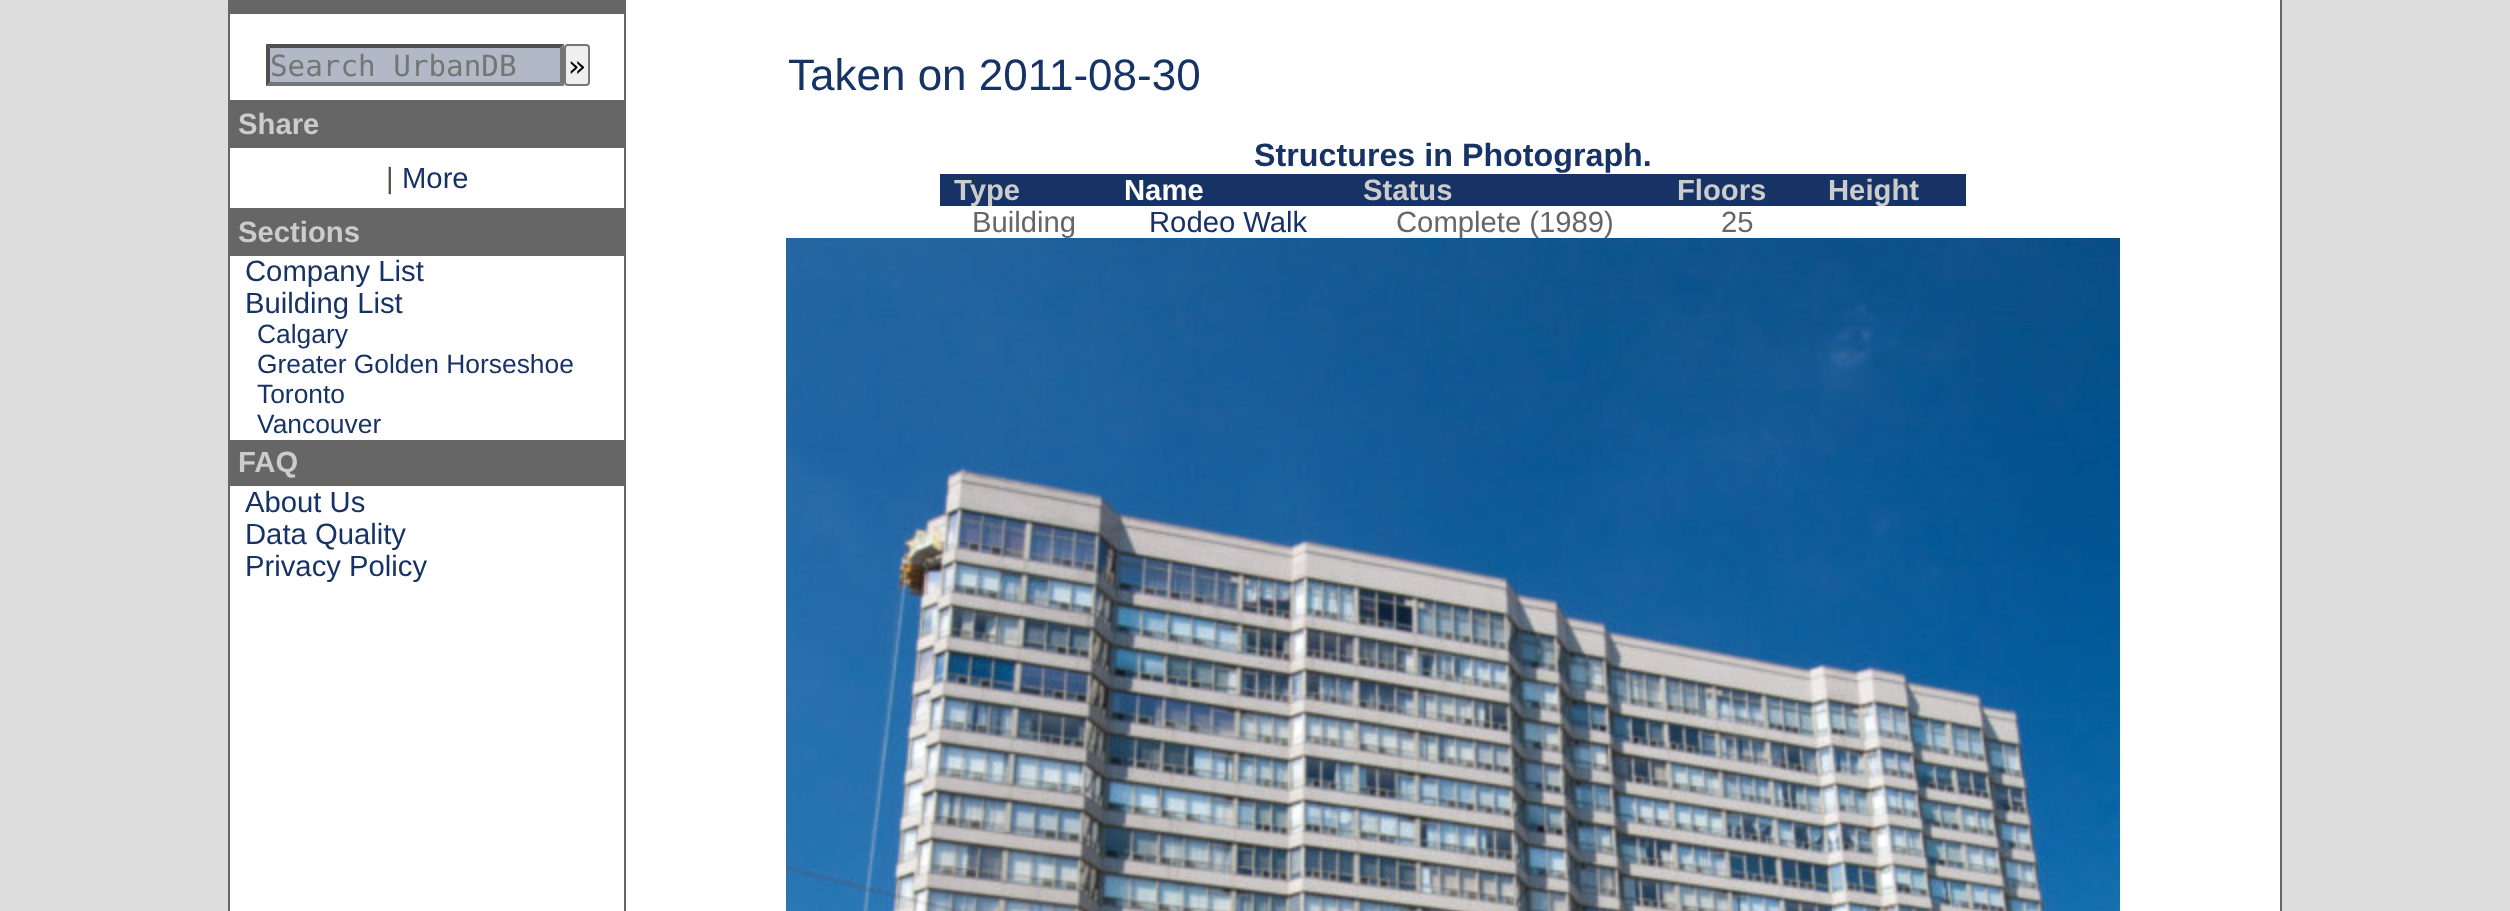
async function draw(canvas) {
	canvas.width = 2510;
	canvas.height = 911;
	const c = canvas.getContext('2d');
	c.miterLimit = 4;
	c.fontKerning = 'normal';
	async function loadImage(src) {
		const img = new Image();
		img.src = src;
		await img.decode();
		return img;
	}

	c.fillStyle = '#ddd';
	c.fillRect(0, 0, 2510, 911);
	for (const [x, y, w, h, color] of [
		[230, 14, 394, 897, '#fff'],
		[624, 0, 2, 911, '#666'],
		[228, 0, 2, 911, '#666'],
		[230, 0, 394, 14, '#666'],
		[266, 44, 298, 42, '#b2b9c6'],
	]) {
		c.fillStyle = color;
		c.fillRect(x, y, w, h);
	}
	c.fillStyle = '#4f4f4f';
	c.beginPath();
	c.moveTo(266, 44);
	c.lineTo(564, 44);
	c.lineTo(560, 48);
	c.lineTo(270, 48);
	c.closePath();
	c.fill();
	c.fillStyle = '#767676';
	c.beginPath();
	c.moveTo(564, 44);
	c.lineTo(564, 86);
	c.lineTo(560, 82);
	c.lineTo(560, 48);
	c.closePath();
	c.fill();
	c.beginPath();
	c.moveTo(564, 86);
	c.lineTo(266, 86);
	c.lineTo(270, 82);
	c.lineTo(560, 82);
	c.closePath();
	c.fill();
	c.fillStyle = '#4f4f4f';
	c.beginPath();
	c.moveTo(266, 86);
	c.lineTo(266, 44);
	c.lineTo(270, 48);
	c.lineTo(270, 82);
	c.closePath();
	c.fill();
	c.font = '29.25px DejaVu Sans Mono';
	c.fillStyle = '#757575';
	c.fillText('Search UrbanDB', 270, 76);
	c.fillStyle = '#efefef';
	c.beginPath();
	c.roundRect(565, 45, 24, 40, 3);
	c.fill();
	c.strokeStyle = '#767676';
	c.lineWidth = 2;
	c.stroke();
	c.fillStyle = '#000';
	c.fillText('»', 568, 76);
	c.fillStyle = '#666';
	c.fillRect(230, 100, 394, 48);
	c.font = 'bold 29.25px Liberation Sans';
	c.fillStyle = '#ccc';
	c.fillText('Share', 238, 134);
	c.font = '29.25px Liberation Sans';
	c.fillStyle = '#555753';
	c.fillText('|', 386, 188);
	c.fillStyle = '#173366';
	c.fillText('More', 402, 188);
	c.fillStyle = '#666';
	c.fillRect(230, 208, 394, 48);
	c.font = 'bold 29.25px Liberation Sans';
	c.fillStyle = '#ccc';
	c.fillText('Sections', 238, 242);
	c.font = '29.25px Liberation Sans';
	c.fillStyle = '#173366';
	c.fillText('Company List', 245, 281);
	c.fillText('Building List', 245, 313);
	c.font = '26.4px Liberation Sans';
	for (const [text, x, y] of [
		['Calgary', 257, 343],
		['Greater Golden Horseshoe', 257, 373],
		['Toronto', 257, 403],
		['Vancouver', 257, 433],
	]) {
		c.fillText(text, x, y);
	}
	c.fillStyle = '#666';
	c.fillRect(230, 440, 394, 46);
	c.font = 'bold 29.25px Liberation Sans';
	c.fillStyle = '#ccc';
	c.fillText('FAQ', 238, 472);
	c.font = '29.25px Liberation Sans';
	c.fillStyle = '#173366';
	for (const [text, x, y] of [
		['About Us', 245, 512],
		['Data Quality', 245, 544],
		['Privacy Policy', 245, 576],
	]) {
		c.fillText(text, x, y);
	}
	c.fillStyle = '#fff';
	c.fillRect(626, 0, 1654, 911);
	c.fillStyle = '#666';
	c.fillRect(2280, 0, 2, 911);
	c.font = '44px Liberation Sans';
	c.fillStyle = '#173366';
	c.fillText('Taken on 2011-08-30', 788, 90);
	c.font = 'bold 32.25px Liberation Sans';
	c.fillText('Structures in Photograph.', 1254, 166);
	c.fillRect(940, 174, 1026, 32);
	c.font = 'bold 29.25px Liberation Sans';
	c.fillStyle = '#ccc';
	c.fillText('Type', 954, 200);
	c.fillStyle = '#fff';
	c.fillText('Name', 1124, 200);
	c.fillStyle = '#ccc';
	for (const [text, x, y] of [
		['Status', 1363, 200],
		['Floors', 1677, 200],
		['Height', 1828, 200],
	]) {
		c.fillText(text, x, y);
	}
	c.font = '29.25px Liberation Sans';
	c.fillStyle = '#666';
	c.fillText('Building', 972, 232);
	c.fillStyle = '#173366';
	c.fillText('Rodeo Walk', 1149, 232);
	c.fillStyle = '#666';
	c.fillText('Complete (1989)', 1396, 232);
	c.fillText('25', 1721, 232);
	c.drawImage(await loadImage('img1.png'), 786, 238, 1334, 673);
}

draw(document.querySelector('canvas'));
